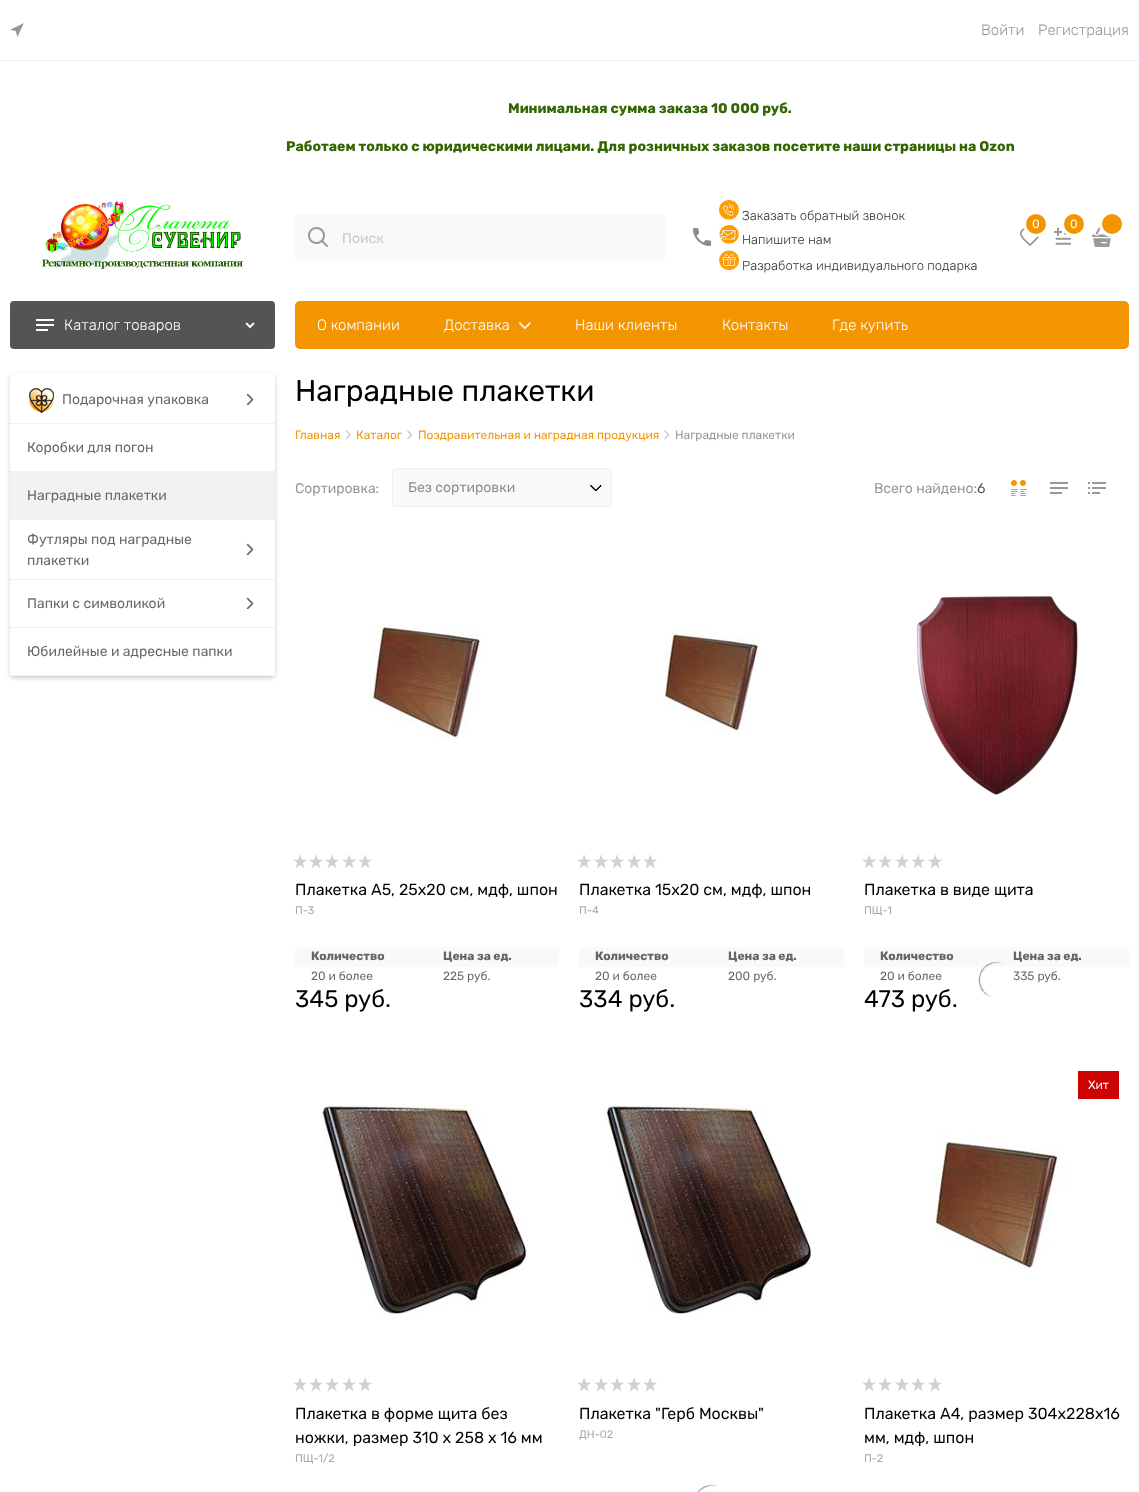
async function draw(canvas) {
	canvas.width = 1139;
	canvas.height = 1492;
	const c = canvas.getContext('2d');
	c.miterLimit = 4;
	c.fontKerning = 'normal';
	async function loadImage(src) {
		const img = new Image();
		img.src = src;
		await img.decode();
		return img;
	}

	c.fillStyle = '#fff';
	c.fillRect(0, 0, 1139, 1492);
	c.fillStyle = '#efeff4';
	c.fillRect(0, 60, 1139, 1);
	c.drawImage(await loadImage('img1.png'), 10, 23, 14, 14);
	c.font = '300 15px Rubik';
	c.fillStyle = '#94969b';
	c.fillText('Войти', 981, 35);
	c.fillText('Регистрация', 1038, 35);
	c.font = 'bold 14px Rubik';
	c.fillStyle = '#360';
	c.fillText('Минимальная сумма заказа 10 000 руб.', 508, 113);
	c.fillText('Работаем только с юридическими лицами. Для розничных заказов посетите наши страницы на Ozon', 286, 151);
	c.drawImage(await loadImage('img2.png'), 42, 201, 201, 68);
	c.fillStyle = '#f9f9f9';
	c.beginPath();
	c.roundRect(295, 214, 370, 47, 4);
	c.fill();
	c.drawImage(await loadImage('img3.png'), 308, 227, 20, 20);
	c.font = '14px Rubik';
	c.fillStyle = '#c8c7cc';
	c.fillText('Поиск', 342, 243);
	c.drawImage(await loadImage('img4.png'), 693, 228, 18, 18);
	c.drawImage(await loadImage('img5.png'), 719, 200, 20, 20);
	c.font = '300 13px Rubik';
	c.fillStyle = '#333';
	c.fillText('Заказать обратный звонок', 742, 220);
	c.drawImage(await loadImage('img6.png'), 719, 225, 20, 19);
	c.fillText('Напишите нам', 742, 244);
	c.drawImage(await loadImage('img7.png'), 719, 250, 20, 20);
	c.fillText('Разработка индивидуального подарка', 742, 270);
	c.drawImage(await loadImage('img8.png'), 1020, 228, 20, 18);
	c.fillStyle = '#f39500';
	c.beginPath();
	c.arc(1036, 224, 11.5, 0, 2 * Math.PI);
	c.fill();
	c.strokeStyle = '#fff';
	c.lineWidth = 3;
	c.stroke();
	c.font = '12px Rubik';
	c.fillStyle = '#fff';
	c.fillText('0', 1032, 228);
	c.drawImage(await loadImage('img9.png'), 1054, 227, 17, 18);
	c.fillStyle = '#f39500';
	c.beginPath();
	c.arc(1074, 224, 11.5, 0, 2 * Math.PI);
	c.fill();
	c.stroke();
	c.fillStyle = '#fff';
	c.fillText('0', 1070, 228);
	c.drawImage(await loadImage('img10.png'), 1092, 227, 20, 20);
	c.fillStyle = '#f39500';
	c.beginPath();
	c.arc(1112, 224, 11.5, 0, 2 * Math.PI);
	c.fill();
	c.stroke();
	c.fillStyle = '#535554';
	c.beginPath();
	c.roundRect(10, 301, 265, 48, 4);
	c.fill();
	c.drawImage(await loadImage('img11.png'), 36, 319, 18, 12);
	c.font = '300 15px Rubik';
	c.fillStyle = '#fff';
	c.fillText('Каталог товаров', 64, 330);
	c.drawImage(await loadImage('img12.png'), 245, 322, 10, 7);
	c.fillStyle = '#f39500';
	c.beginPath();
	c.roundRect(295, 301, 834, 48, 5);
	c.fill();
	c.fillStyle = '#fff';
	c.fillText('О компании', 317, 330);
	c.fillText('Доставка', 444, 330);
	c.drawImage(await loadImage('img13.png'), 519, 322, 12, 7);
	for (const [text, x, y] of [
		['Наши клиенты', 575, 330],
		['Контакты', 722, 330],
		['Где купить', 832, 330],
	]) {
		c.fillText(text, x, y);
	}
	c.fillStyle = '#00000033';
	c.filter = 'blur(2px)';
	c.beginPath();
	c.roundRect(10, 375, 265, 303, 4);
	c.fill();
	c.filter = 'none';
	c.fillStyle = '#fff';
	c.beginPath();
	c.roundRect(10, 373, 265, 303, 4);
	c.fill();
	c.fillStyle = '#efeff4';
	c.fillRect(10, 423, 265, 1);
	c.drawImage(await loadImage('img14.png'), 29, 387, 25, 26);
	c.font = '14px Rubik';
	c.fillStyle = '#666';
	c.fillText('Подарочная упаковка', 62, 404);
	c.drawImage(await loadImage('img15.png'), 246, 393, 8, 13);
	c.fillStyle = '#efeff4';
	c.fillRect(10, 471, 265, 1);
	c.fillStyle = '#666';
	c.fillText('Коробки для погон', 27, 452);
	c.fillStyle = '#efeff4';
	c.fillRect(10, 519, 265, 1);
	c.fillStyle = '#f2f2f2';
	c.fillRect(10, 472, 265, 47);
	c.fillStyle = '#666';
	c.fillText('Наградные плакетки', 27, 500);
	c.fillStyle = '#efeff4';
	c.fillRect(10, 579, 265, 1);
	c.fillStyle = '#666';
	c.fillText('Футляры под наградные', 27, 544);
	c.fillText('плакетки', 27, 565);
	c.drawImage(await loadImage('img16.png'), 246, 543, 8, 13);
	c.fillStyle = '#efeff4';
	c.fillRect(10, 627, 265, 1);
	c.fillStyle = '#666';
	c.fillText('Папки с символикой', 27, 608);
	c.drawImage(await loadImage('img16.png'), 246, 597, 8, 13);
	c.fillStyle = '#efeff4';
	c.fillRect(10, 675, 265, 1);
	c.fillStyle = '#fff';
	c.fillRect(10, 673, 265, 2);
	c.fillStyle = '#666';
	c.fillText('Юбилейные и адресные папки', 27, 656);
	c.font = '30px Rubik';
	c.fillStyle = '#000';
	c.fillText('Наградные плакетки', 295, 401);
	c.font = '12px Rubik';
	c.fillStyle = '#f39500';
	c.fillText('Главная', 295, 439);
	c.drawImage(await loadImage('img17.png'), 345, 430, 6, 9);
	c.fillText('Каталог', 356, 439);
	c.drawImage(await loadImage('img18.png'), 407, 430, 5, 10);
	c.fillText('Поздравительная и наградная продукция', 418, 439);
	c.drawImage(await loadImage('img19.png'), 664, 430, 5, 9);
	c.fillStyle = '#969494';
	c.fillText('Наградные плакетки', 675, 439);
	c.font = '14px Rubik';
	c.fillText('Сортировка:', 295, 493);
	c.fillStyle = '#f9f9f9';
	c.beginPath();
	c.roundRect(392.5, 468.5, 219, 38, 3.5);
	c.fill();
	c.strokeStyle = '#efeff4';
	c.lineWidth = 1;
	c.stroke();
	c.fillStyle = '#8a8a8f';
	c.fillText('Без сортировки', 408, 492);
	c.drawImage(await loadImage('img20.png'), 590, 485, 12, 6);
	c.fillStyle = '#969494';
	c.fillText('Всего найдено:', 874, 493);
	c.fillStyle = '#4b4f58';
	c.fillText('6', 977, 493);
	c.drawImage(await loadImage('img21.png'), 1011, 480, 16, 16);
	c.drawImage(await loadImage('img22.png'), 1050, 482, 18, 12);
	c.drawImage(await loadImage('img23.png'), 1088, 482, 18, 12);
	c.drawImage(await loadImage('img24.png'), 369, 624, 112, 115);
	c.drawImage(await loadImage('img25.png'), 293, 854, 14, 15);
	c.drawImage(await loadImage('img25.png'), 309, 854, 14, 15);
	c.drawImage(await loadImage('img25.png'), 325, 854, 14, 15);
	c.drawImage(await loadImage('img25.png'), 342, 854, 14, 15);
	c.drawImage(await loadImage('img25.png'), 358, 854, 14, 15);
	c.font = '16px Rubik';
	c.fillStyle = '#000';
	c.fillText('Плакетка А5, 25х20 см, мдф, шпон', 295, 895);
	c.font = '11px Rubik';
	c.fillStyle = '#a5a8af';
	c.fillText('П-3', 295, 914);
	c.fillStyle = '#f9f9f9';
	c.beginPath();
	c.roundRect(295, 947, 264, 20, [1, 1, 0, 0]);
	c.fill();
	c.font = 'bold 12px Rubik';
	c.fillStyle = '#666';
	c.fillText('Количество', 311, 960);
	c.fillText('Цена за ед.', 443, 960);
	c.font = '12px Rubik';
	c.fillText('20 и более', 311, 980);
	c.fillText('225 руб.', 443, 980);
	c.font = '24px Rubik';
	c.fillStyle = '#000';
	c.fillText('345 руб.', 295, 1007);
	c.drawImage(await loadImage('img26.png'), 659, 627, 107, 106);
	c.drawImage(await loadImage('img25.png'), 577, 854, 14, 15);
	c.drawImage(await loadImage('img25.png'), 594, 854, 14, 15);
	c.drawImage(await loadImage('img25.png'), 610, 854, 14, 15);
	c.drawImage(await loadImage('img25.png'), 627, 854, 14, 15);
	c.drawImage(await loadImage('img25.png'), 643, 854, 14, 15);
	c.font = '16px Rubik';
	c.fillText('Плакетка 15х20 см, мдф, шпон', 579, 895);
	c.font = '11px Rubik';
	c.fillStyle = '#a5a8af';
	c.fillText('П-4', 579, 914);
	c.fillStyle = '#f9f9f9';
	c.beginPath();
	c.roundRect(579, 947, 265, 20, [1, 1, 0, 0]);
	c.fill();
	c.font = 'bold 12px Rubik';
	c.fillStyle = '#666';
	c.fillText('Количество', 595, 960);
	c.fillText('Цена за ед.', 728, 960);
	c.font = '12px Rubik';
	c.fillText('20 и более', 595, 980);
	c.fillText('200 руб.', 728, 980);
	c.font = '24px Rubik';
	c.fillStyle = '#000';
	c.fillText('334 руб.', 579, 1007);
	c.drawImage(await loadImage('img27.png'), 916, 596, 162, 199);
	c.fillStyle = '#f9f9f9';
	c.beginPath();
	c.roundRect(864, 947, 265, 20, [1, 1, 0, 0]);
	c.fill();
	c.drawImage(await loadImage('img28.png'), 978, 961, 24, 36);
	c.drawImage(await loadImage('img25.png'), 862, 854, 14, 15);
	c.drawImage(await loadImage('img25.png'), 878, 854, 14, 15);
	c.drawImage(await loadImage('img25.png'), 895, 854, 14, 15);
	c.drawImage(await loadImage('img25.png'), 911, 854, 14, 15);
	c.drawImage(await loadImage('img25.png'), 928, 854, 14, 15);
	c.font = '16px Rubik';
	c.fillStyle = '#000';
	c.fillText('Плакетка в виде щита', 864, 895);
	c.font = '11px Rubik';
	c.fillStyle = '#a5a8af';
	c.fillText('ПЩ-1', 864, 914);
	c.font = 'bold 12px Rubik';
	c.fillStyle = '#666';
	c.fillText('Количество', 880, 960);
	c.fillText('Цена за ед.', 1013, 960);
	c.font = '12px Rubik';
	c.fillText('20 и более', 880, 980);
	c.fillText('335 руб.', 1013, 980);
	c.font = '24px Rubik';
	c.fillStyle = '#000';
	c.fillText('473 руб.', 864, 1007);
	c.drawImage(await loadImage('img29.png'), 320, 1104, 208, 216);
	c.drawImage(await loadImage('img25.png'), 293, 1377, 14, 15);
	c.drawImage(await loadImage('img25.png'), 309, 1377, 14, 15);
	c.drawImage(await loadImage('img25.png'), 325, 1377, 14, 15);
	c.drawImage(await loadImage('img25.png'), 342, 1377, 14, 15);
	c.drawImage(await loadImage('img25.png'), 358, 1377, 14, 15);
	c.font = '16px Rubik';
	c.fillText('Плакетка в форме щита без', 295, 1419);
	c.fillText('ножки, размер 310 х 258 х 16 мм', 295, 1443);
	c.font = '11px Rubik';
	c.fillStyle = '#a5a8af';
	c.fillText('ПЩ-1/2', 295, 1462);
	c.drawImage(await loadImage('img30.png'), 604, 1104, 207, 216);
	c.drawImage(await loadImage('img31.png'), 697, 1484, 20, 8);
	c.drawImage(await loadImage('img25.png'), 577, 1377, 14, 15);
	c.drawImage(await loadImage('img25.png'), 594, 1377, 14, 15);
	c.drawImage(await loadImage('img25.png'), 610, 1377, 14, 15);
	c.drawImage(await loadImage('img25.png'), 627, 1377, 14, 15);
	c.drawImage(await loadImage('img25.png'), 643, 1377, 14, 15);
	c.font = '16px Rubik';
	c.fillStyle = '#000';
	c.fillText('Плакетка "Герб Москвы"', 579, 1419);
	c.font = '11px Rubik';
	c.fillStyle = '#a5a8af';
	c.fillText('ДН-02', 579, 1438);
	c.fillStyle = '#cd0303';
	c.fillRect(1078, 1071, 41, 28);
	c.font = '12px Rubik';
	c.fillStyle = '#fff';
	c.fillText('Хит', 1088, 1089);
	c.drawImage(await loadImage('img32.png'), 931, 1134, 136, 140);
	c.drawImage(await loadImage('img25.png'), 862, 1377, 14, 15);
	c.drawImage(await loadImage('img25.png'), 878, 1377, 14, 15);
	c.drawImage(await loadImage('img25.png'), 895, 1377, 14, 15);
	c.drawImage(await loadImage('img25.png'), 911, 1377, 14, 15);
	c.drawImage(await loadImage('img25.png'), 928, 1377, 14, 15);
	c.font = '16px Rubik';
	c.fillStyle = '#000';
	c.fillText('Плакетка А4, размер 304х228х16', 864, 1419);
	c.fillText('мм, мдф, шпон', 864, 1443);
	c.font = '11px Rubik';
	c.fillStyle = '#a5a8af';
	c.fillText('П-2', 864, 1462);
}

draw(document.querySelector('canvas'));
